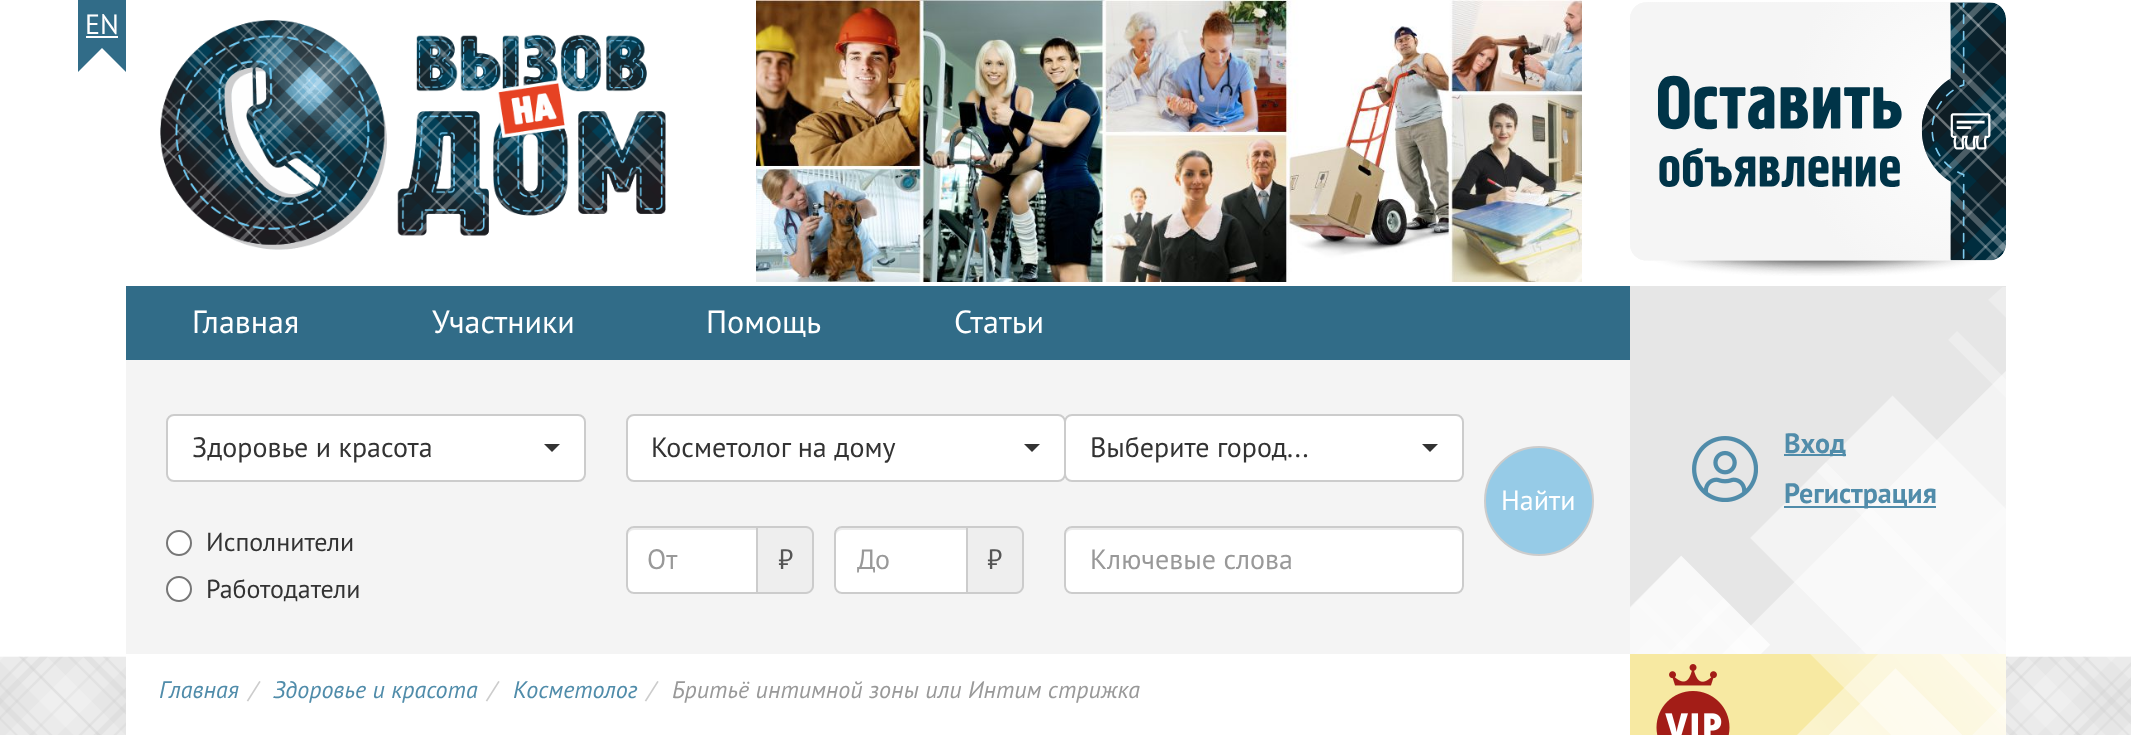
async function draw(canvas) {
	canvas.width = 2131;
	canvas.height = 735;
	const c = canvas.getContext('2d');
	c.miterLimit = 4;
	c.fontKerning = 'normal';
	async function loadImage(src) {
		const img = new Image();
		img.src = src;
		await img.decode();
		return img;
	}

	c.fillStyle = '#fff';
	c.fillRect(0, 0, 2131, 735);
	c.save();
	c.beginPath();
	c.rect(78, 0, 48, 72);
	c.clip();
	c.fillStyle = '#316c88';
	c.beginPath();
	c.moveTo(78, 4);
	c.lineTo(112, 38);
	c.lineTo(78, 72);
	c.lineTo(44, 38);
	c.closePath();
	c.fill();
	c.beginPath();
	c.moveTo(126, 4);
	c.lineTo(160, 38);
	c.lineTo(126, 72);
	c.lineTo(92, 38);
	c.closePath();
	c.fill();
	c.restore();
	c.fillStyle = '#316c88';
	c.fillRect(78, 0, 48, 28);
	c.font = '28px PT Sans';
	c.fillStyle = '#fff';
	c.fillText('EN', 85, 34);
	c.fillRect(86, 36, 32, 2);
	c.drawImage(await loadImage('img1.png'), 160, 20, 506, 230);
	c.drawImage(await loadImage('img2.png'), 756, 0, 826, 282);
	c.drawImage(await loadImage('img3.png'), 1630, 2, 376, 274);
	c.fillStyle = '#316c88';
	c.fillRect(126, 286, 1504, 74);
	c.font = '32px PT Sans';
	c.fillStyle = '#fff';
	for (const [text, x, y] of [
		['Главная', 192, 333],
		['Участники', 432, 333],
		['Помощь', 706, 333],
		['Статьи', 954, 333],
	]) {
		c.fillText(text, x, y);
	}
	c.fillStyle = '#f4f4f4';
	c.fillRect(126, 360, 1504, 294);
	c.fillStyle = '#fff';
	c.beginPath();
	c.roundRect(167, 415, 418, 66, 7);
	c.fill();
	c.strokeStyle = '#ccc';
	c.lineWidth = 2;
	c.stroke();
	c.font = '28px PT Sans';
	c.fillStyle = '#333';
	c.fillText('Здоровье и красота', 192, 457);
	c.beginPath();
	c.moveTo(544, 444);
	c.lineTo(560, 444);
	c.lineTo(552, 452);
	c.closePath();
	c.fill();
	c.fillStyle = '#fff';
	c.beginPath();
	c.roundRect(627, 415, 438, 66, 7);
	c.fill();
	c.stroke();
	c.fillStyle = '#333';
	c.fillText('Косметолог на дому', 651, 457);
	c.beginPath();
	c.moveTo(1024, 444);
	c.lineTo(1040, 444);
	c.lineTo(1032, 452);
	c.closePath();
	c.fill();
	c.fillStyle = '#fff';
	c.beginPath();
	c.roundRect(1065, 415, 398, 66, 7);
	c.fill();
	c.stroke();
	c.fillStyle = '#333';
	c.fillText('Выберите город...', 1090, 457);
	c.beginPath();
	c.moveTo(1422, 444);
	c.lineTo(1438, 444);
	c.lineTo(1430, 452);
	c.closePath();
	c.fill();
	c.fillStyle = '#96cbe7';
	c.beginPath();
	c.arc(1539, 501, 54, 0, 2 * Math.PI);
	c.fill();
	c.stroke();
	c.fillStyle = '#fff';
	c.fillText('Найти', 1501, 510);
	c.beginPath();
	c.arc(179, 543, 12, 0, 2 * Math.PI);
	c.fill();
	c.strokeStyle = '#767676';
	c.stroke();
	c.font = '26px PT Sans';
	c.fillStyle = '#333';
	c.fillText('Исполнители', 206, 551);
	c.fillStyle = '#fff';
	c.beginPath();
	c.arc(179, 589, 12, 0, 2 * Math.PI);
	c.fill();
	c.stroke();
	c.fillStyle = '#333';
	c.fillText('Работодатели', 206, 598);
	c.fillStyle = '#fff';
	c.beginPath();
	c.roundRect(626, 526, 132, 68, [8, 0, 0, 8]);
	c.fill();
	c.fillStyle = '#ececec';
	c.beginPath();
	c.moveTo(634, 530);
	c.lineTo(756, 530);
	c.lineTo(756, 528);
	c.lineTo(634, 528);
	c.bezierCurveTo(631, 528, 628, 531, 628, 534);
	c.lineTo(628, 536);
	c.bezierCurveTo(628, 533, 631, 530, 634, 530);
	c.closePath();
	c.fill();
	c.beginPath();
	c.roundRect(627, 527, 130, 66, [7, 0, 0, 7]);
	c.strokeStyle = '#ccc';
	c.stroke();
	c.font = '28px PT Sans';
	c.fillStyle = '#999';
	c.fillText('От', 647, 569);
	c.fillStyle = '#eee';
	c.beginPath();
	c.roundRect(758, 526, 56, 68, [0, 8, 8, 0]);
	c.fill();
	c.fillStyle = '#ccc';
	c.beginPath();
	c.moveTo(758, 526);
	c.lineTo(806, 526);
	c.bezierCurveTo(810, 526, 814, 530, 814, 534);
	c.lineTo(814, 586);
	c.bezierCurveTo(814, 590, 810, 594, 806, 594);
	c.lineTo(758, 594);
	c.closePath();
	c.moveTo(758, 528);
	c.lineTo(806, 528);
	c.bezierCurveTo(809, 528, 812, 531, 812, 534);
	c.lineTo(812, 586);
	c.bezierCurveTo(812, 589, 809, 592, 806, 592);
	c.lineTo(758, 592);
	c.closePath();
	c.fill('evenodd');
	c.fillStyle = '#555';
	c.fillText('₶', 778, 569);
	c.fillStyle = '#fff';
	c.beginPath();
	c.roundRect(834, 526, 134, 68, [8, 0, 0, 8]);
	c.fill();
	c.fillStyle = '#ececec';
	c.beginPath();
	c.moveTo(842, 530);
	c.lineTo(966, 530);
	c.lineTo(966, 528);
	c.lineTo(842, 528);
	c.bezierCurveTo(839, 528, 836, 531, 836, 534);
	c.lineTo(836, 536);
	c.bezierCurveTo(836, 533, 839, 530, 842, 530);
	c.closePath();
	c.fill();
	c.beginPath();
	c.roundRect(835, 527, 132, 66, [7, 0, 0, 7]);
	c.stroke();
	c.fillStyle = '#999';
	c.fillText('До', 857, 569);
	c.fillStyle = '#eee';
	c.beginPath();
	c.roundRect(968, 526, 56, 68, [0, 8, 8, 0]);
	c.fill();
	c.fillStyle = '#ccc';
	c.beginPath();
	c.moveTo(968, 526);
	c.lineTo(1016, 526);
	c.bezierCurveTo(1020, 526, 1024, 530, 1024, 534);
	c.lineTo(1024, 586);
	c.bezierCurveTo(1024, 590, 1020, 594, 1016, 594);
	c.lineTo(968, 594);
	c.closePath();
	c.moveTo(968, 528);
	c.lineTo(1016, 528);
	c.bezierCurveTo(1019, 528, 1022, 531, 1022, 534);
	c.lineTo(1022, 586);
	c.bezierCurveTo(1022, 589, 1019, 592, 1016, 592);
	c.lineTo(968, 592);
	c.closePath();
	c.fill('evenodd');
	c.fillStyle = '#555';
	c.fillText('₶', 987, 569);
	c.fillStyle = '#fff';
	c.beginPath();
	c.roundRect(1064, 526, 400, 68, 8);
	c.fill();
	c.fillStyle = '#ececec';
	c.beginPath();
	c.moveTo(1072, 530);
	c.lineTo(1456, 530);
	c.bezierCurveTo(1459, 530, 1462, 533, 1462, 536);
	c.bezierCurveTo(1462, 532, 1461, 528, 1456, 528);
	c.lineTo(1072, 528);
	c.bezierCurveTo(1067, 528, 1066, 532, 1066, 536);
	c.bezierCurveTo(1066, 533, 1069, 530, 1072, 530);
	c.closePath();
	c.fill();
	c.beginPath();
	c.roundRect(1065, 527, 398, 66, 7);
	c.stroke();
	c.fillStyle = '#999';
	c.fillText('Ключевые слова', 1090, 569);
	c.fillStyle = '#e6e6e6';
	c.fillRect(1630, 286, 376, 1);
	c.drawImage(await loadImage('img4.png'), 1630, 287, 376, 367);
	c.drawImage(await loadImage('img5.png'), 1692, 436, 66, 66);
	c.fillStyle = '#508caa';
	c.fillRect(1784, 454, 62, 2);
	c.font = 'bold 28px PT Sans';
	c.fillText('Вход', 1784, 453);
	c.fillRect(1784, 506, 152, 2);
	c.fillText('Регистрация', 1784, 503);
	c.drawImage(await loadImage('img8.png'), 0, 656, 2131, 79);
	c.fillStyle = '#fff';
	c.fillRect(126, 656, 1504, 79);
	c.font = 'italic 24px PT Sans';
	c.fillStyle = '#508caa';
	c.fillText('Главная', 159, 698);
	c.fillStyle = '#ccc';
	c.fillText('/', 249, 698);
	c.fillStyle = '#508caa';
	c.fillText('Здоровье и красота', 273, 698);
	c.fillStyle = '#ccc';
	c.fillText('/', 488, 698);
	c.fillStyle = '#508caa';
	c.fillText('Косметолог', 513, 698);
	c.fillStyle = '#ccc';
	c.fillText('/', 647, 698);
	c.fillStyle = '#999';
	c.fillText('Бритьё интимной зоны или Интим стрижка', 672, 698);
	c.drawImage(await loadImage('img6.png'), 1630, 654, 376, 81);
	c.drawImage(await loadImage('img7.png'), 1656, 664, 74, 71);
}

draw(document.querySelector('canvas'));
